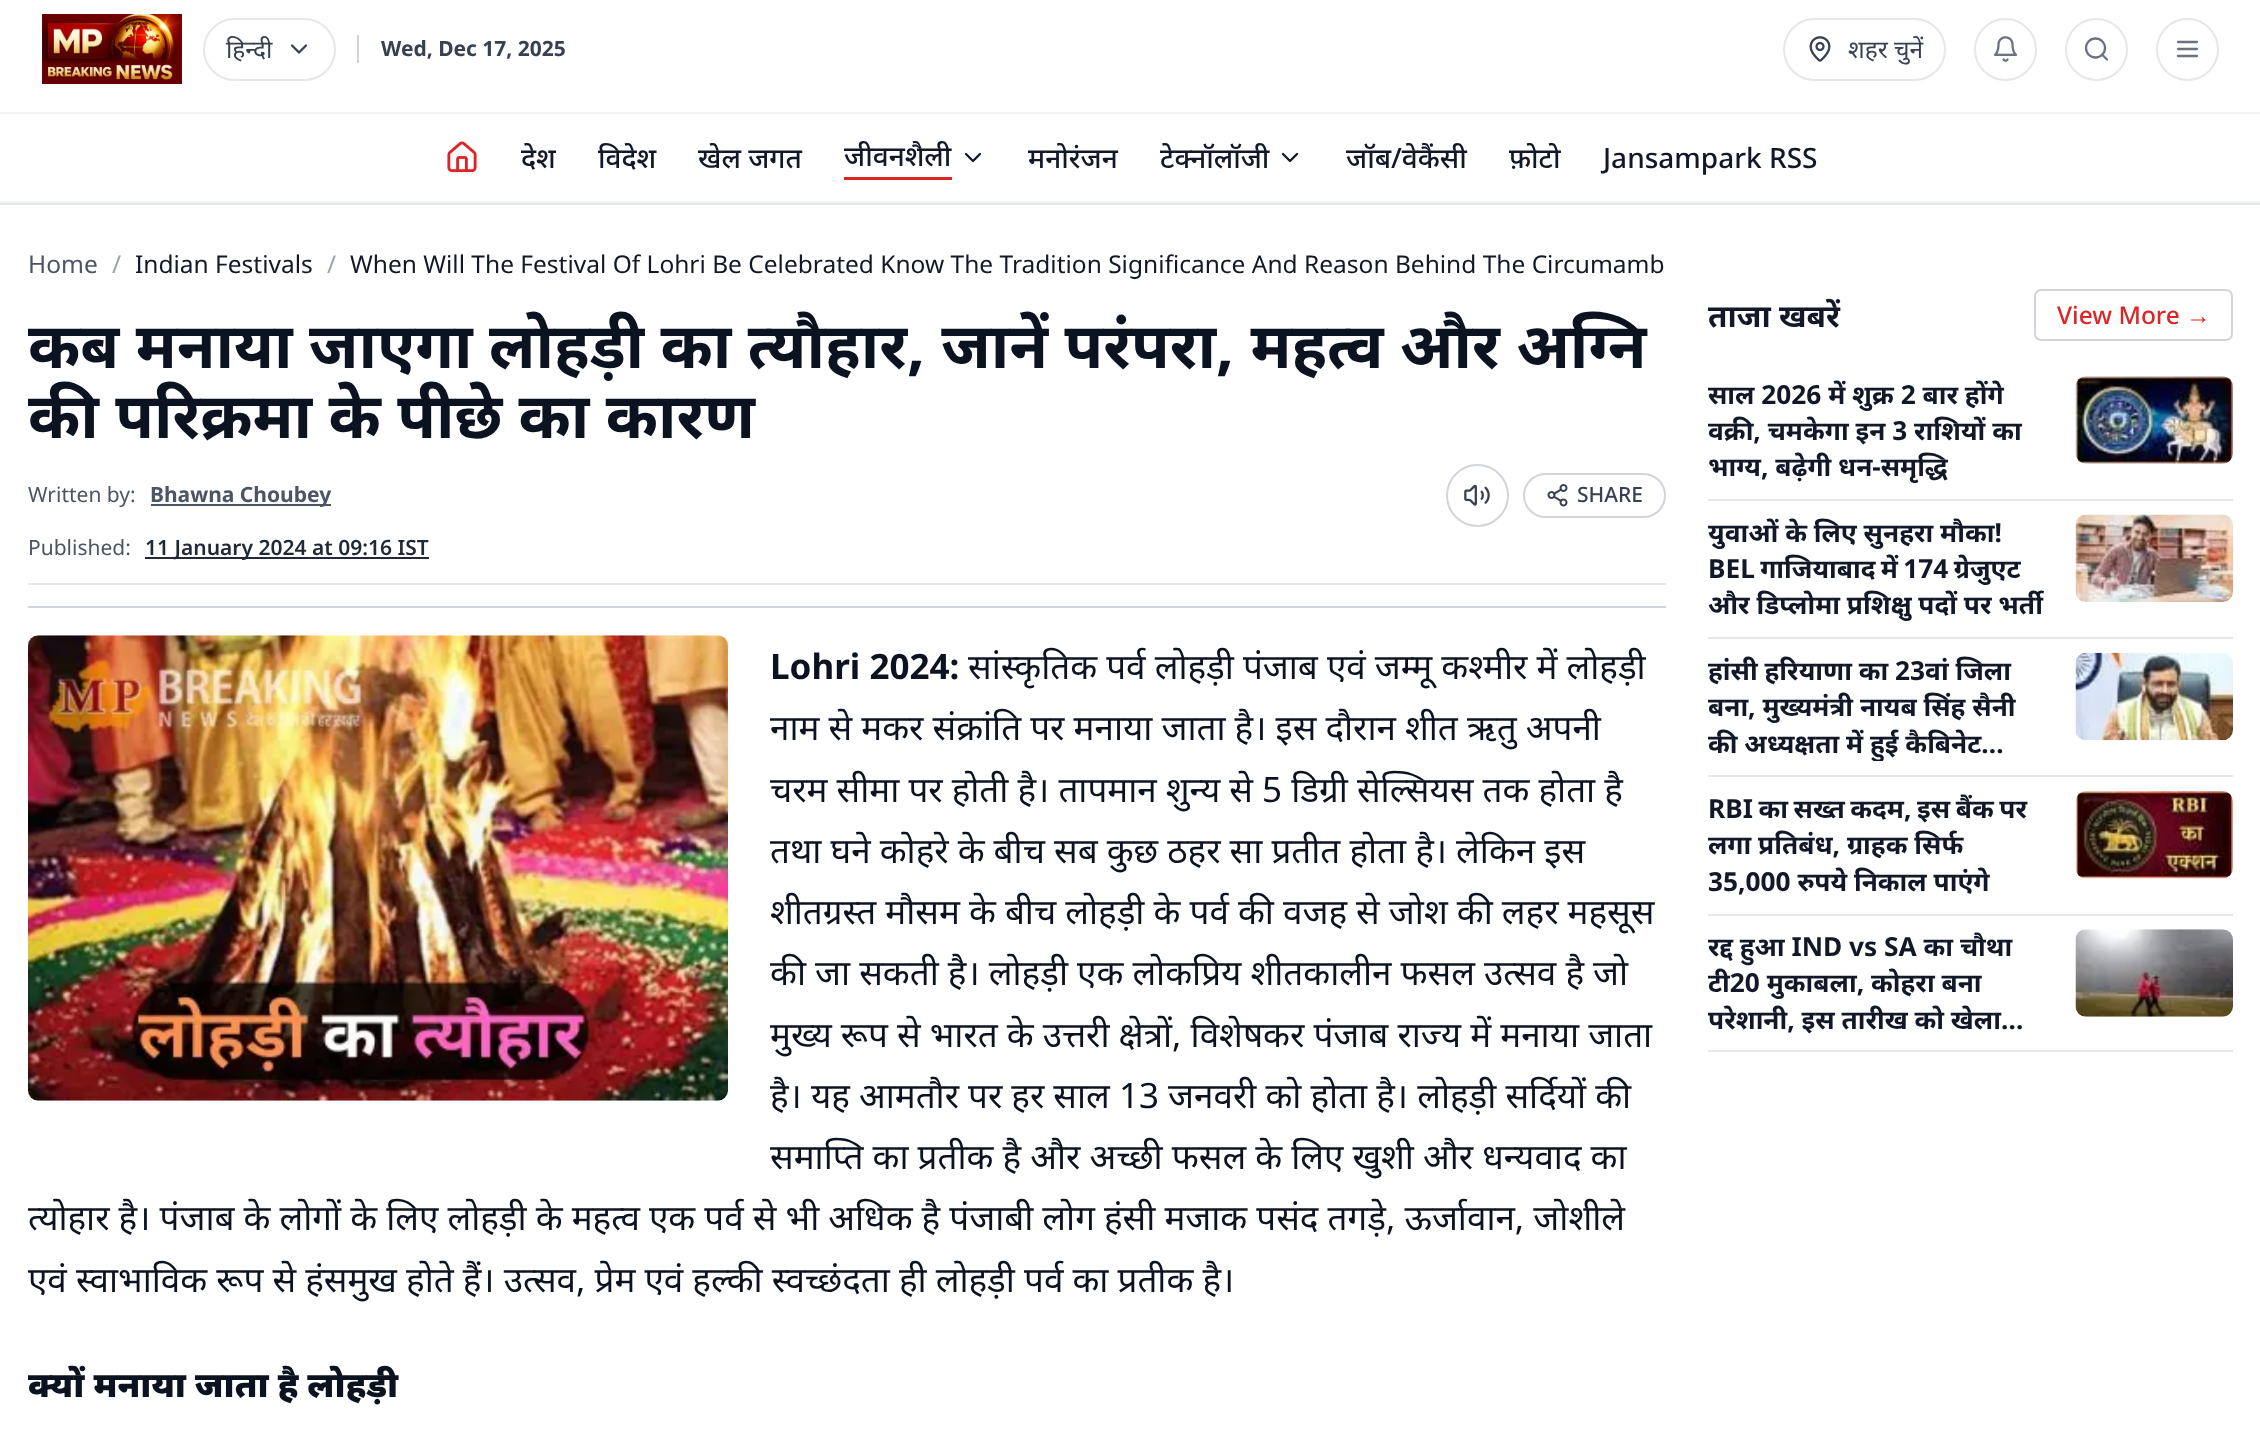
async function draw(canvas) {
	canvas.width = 2260;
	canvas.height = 1435;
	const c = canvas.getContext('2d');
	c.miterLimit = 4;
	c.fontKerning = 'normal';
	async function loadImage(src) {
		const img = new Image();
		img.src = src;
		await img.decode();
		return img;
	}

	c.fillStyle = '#fff';
	c.fillRect(0, 0, 2260, 1435);
	c.fillStyle = '#e5e7eb';
	c.fillRect(0, 203, 2260, 2);
	c.drawImage(await loadImage('img1.png'), 42, 14, 140, 70);
	c.beginPath();
	c.roundRect(204, 19, 131, 61, 30.5);
	c.strokeStyle = '#e5e7eb';
	c.lineWidth = 2;
	c.stroke();
	c.font = '24.5px Noto Sans';
	c.fillStyle = '#374151';
	c.fillText('हिन्दी', 226, 58);
	c.beginPath();
	c.moveTo(292, 45.5);
	c.lineTo(299, 52.5);
	c.lineTo(306, 45.5);
	c.strokeStyle = '#374151';
	c.lineWidth = 2.3;
	c.lineCap = 'round';
	c.lineJoin = 'round';
	c.stroke();
	c.fillStyle = '#d1d5db';
	c.fillRect(357, 35, 2, 28);
	c.font = 'bold 21px Noto Sans';
	c.fillStyle = '#374151';
	c.fillText('Wed, Dec 17, 2025', 381, 56);
	c.beginPath();
	c.roundRect(1784, 19, 161, 61, 30.5);
	c.strokeStyle = '#e5e7eb';
	c.lineWidth = 2;
	c.lineJoin = 'miter';
	c.stroke();
	c.drawImage(await loadImage('img2.png'), 1809, 36, 22, 26);
	c.font = '24.5px Noto Sans';
	c.fillText('शहर चुनें', 1848, 58);
	c.beginPath();
	c.arc(2005.5, 49.5, 30.5, 0, 2 * Math.PI);
	c.stroke();
	c.drawImage(await loadImage('img3.png'), 1993, 36, 25, 26);
	c.beginPath();
	c.arc(2096.5, 49.5, 30.5, 0, 2 * Math.PI);
	c.stroke();
	c.beginPath();
	c.arc(2095.5, 48, 9.5, 0, 2 * Math.PI);
	c.strokeStyle = '#6b7280';
	c.lineWidth = 2.3;
	c.stroke();
	c.beginPath();
	c.moveTo(2107, 59.5);
	c.lineTo(2102, 54.5);
	c.lineJoin = 'round';
	c.stroke();
	c.beginPath();
	c.arc(2187.5, 49.5, 30.5, 0, 2 * Math.PI);
	c.strokeStyle = '#e5e7eb';
	c.lineWidth = 2;
	c.stroke();
	c.beginPath();
	c.moveTo(2178, 42);
	c.lineTo(2197, 42);
	c.moveTo(2178, 49);
	c.lineTo(2197, 49);
	c.moveTo(2178, 56);
	c.lineTo(2197, 56);
	c.strokeStyle = '#6b7280';
	c.lineWidth = 2.3;
	c.stroke();
	c.fillStyle = '#f3f4f6';
	c.fillRect(0, 112, 2260, 2);
	c.drawImage(await loadImage('img4.png'), 447, 141, 30, 32);
	c.font = '500 28px Noto Sans';
	c.fillStyle = '#111827';
	for (const [text, x, y] of [
		['देश', 521, 168],
		['विदेश', 598, 168],
		['खेल जगत', 698, 168],
	]) {
		c.fillText(text, x, y);
	}
	c.fillStyle = '#dc2626';
	c.fillRect(844, 177, 108, 3);
	c.fillStyle = '#111827';
	c.fillText('जीवनशैली', 844, 166);
	c.beginPath();
	c.moveTo(966, 154);
	c.lineTo(973, 161);
	c.lineTo(980, 154);
	c.strokeStyle = '#111827';
	c.stroke();
	c.fillText('मनोरंजन', 1028, 168);
	c.fillText('टेक्नॉलॉजी', 1160, 168);
	c.beginPath();
	c.moveTo(1283, 154);
	c.lineTo(1290, 161);
	c.lineTo(1297, 154);
	c.stroke();
	for (const [text, x, y] of [
		['जॉब/वेकैंसी', 1346, 168],
		['फ़ोटो', 1509, 168],
		['Jansampark RSS', 1603, 168],
	]) {
		c.fillText(text, x, y);
	}
	c.fillStyle = '#f3f4f6';
	c.fillRect(0, 201, 2260, 2);
	c.font = '24.5px Noto Sans';
	c.fillStyle = '#4b5563';
	c.fillText('Home', 28, 273);
	c.fillStyle = '#9ca3af';
	c.fillText('/', 112, 273);
	c.fillStyle = '#111827';
	c.fillText('Indian Festivals', 135, 273);
	c.fillStyle = '#9ca3af';
	c.fillText('/', 327, 273);
	c.fillStyle = '#111827';
	c.fillText('When Will The Festival Of Lohri Be Celebrated Know The Tradition Significance And Reason Behind The Circumamb', 350, 273);
	c.font = 'bold 63px Noto Sans';
	c.fillStyle = '#0b1220';
	c.fillText('कब मनाया जाएगा लोहड़ी का त्यौहार, जानें परंपरा, महत्व और अग्नि', 28, 368);
	c.fillText('की परिक्रमा के पीछे का कारण', 28, 438);
	c.font = '21px Noto Sans';
	c.fillStyle = '#4b5563';
	c.fillText('Written by:', 28, 502);
	c.fillRect(151, 504, 180, 2);
	c.font = 'bold 21px Noto Sans';
	c.fillText('Bhawna Choubey', 150, 502);
	c.beginPath();
	c.arc(1477.5, 495.5, 30.5, 0, 2 * Math.PI);
	c.strokeStyle = '#d1d5db';
	c.lineWidth = 2;
	c.stroke();
	c.drawImage(await loadImage('img5.png'), 1464, 484, 26, 22);
	c.beginPath();
	c.roundRect(1524, 474, 141, 43, 21.5);
	c.lineJoin = 'miter';
	c.stroke();
	c.drawImage(await loadImage('img6.png'), 1547, 484, 21, 23);
	c.font = '500 21px Noto Sans';
	c.fillStyle = '#374151';
	c.fillText('SHARE', 1577, 502);
	c.fillStyle = '#e5e7eb';
	c.fillRect(28, 583, 1638, 2);
	c.font = '21px Noto Sans';
	c.fillStyle = '#4b5563';
	c.fillText('Published:', 28, 555);
	c.fillStyle = '#1f2937';
	c.fillRect(145, 557, 284, 2);
	c.font = '600 21px Noto Sans';
	c.fillText('11 January 2024 at 09:16 IST', 145, 555);
	c.fillStyle = '#d1d5db';
	c.fillRect(28, 606, 1638, 2);
	c.drawImage(await loadImage('img7.png'), 28, 635, 700, 466);
	c.font = 'bold 35px Noto Sans';
	c.fillStyle = '#0b1220';
	c.fillText('Lohri 2024:', 770, 679);
	c.font = '35px Noto Sans';
	for (const [text, x, y] of [
		['सांस्कृतिक पर्व लोहड़ी पंजाब एवं जम्मू कश्मीर में लोहड़ी', 968, 679],
		['नाम से मकर संक्रांति पर मनाया जाता है। इस दौरान शीत ऋतु अपनी', 770, 740],
		['चरम सीमा पर होती है। तापमान शुन्य से 5 डिग्री सेल्सियस तक होता है', 770, 802],
		['तथा घने कोहरे के बीच सब कुछ ठहर सा प्रतीत होता है। लेकिन इस', 770, 863],
		['शीतग्रस्त मौसम के बीच लोहड़ी के पर्व की वजह से जोश की लहर महसूस', 770, 924],
		['की जा सकती है। लोहड़ी एक लोकप्रिय शीतकालीन फसल उत्सव है जो', 770, 985],
		['मुख्य रूप से भारत के उत्तरी क्षेत्रों, विशेषकर पंजाब राज्य में मनाया जाता', 770, 1047],
		['है। यह आमतौर पर हर साल 13 जनवरी को होता है। लोहड़ी सर्दियों की', 770, 1108],
		['समाप्ति का प्रतीक है और अच्छी फसल के लिए खुशी और धन्यवाद का', 770, 1169],
		['त्योहार है। पंजाब के लोगों के लिए लोहड़ी के महत्व एक पर्व से भी अधिक है पंजाबी लोग हंसी मजाक पसंद तगड़े, ऊर्जावान, जोशीले', 28, 1230],
		['एवं स्वाभाविक रूप से हंसमुख होते हैं। उत्सव, प्रेम एवं हल्की स्वच्छंदता ही लोहड़ी पर्व का प्रतीक है।', 28, 1292],
	]) {
		c.fillText(text, x, y);
	}
	c.font = '900 35px Noto Sans';
	c.fillText('क्यों मनाया जाता है लोहड़ी', 28, 1397);
	c.font = 'bold 31.5px Noto Sans';
	c.fillStyle = '#111827';
	c.fillText('ताजा खबरें', 1708, 327);
	c.beginPath();
	c.roundRect(2035, 290, 197, 50, 6);
	c.stroke();
	c.font = '500 24.5px Noto Sans';
	c.fillStyle = '#dc2626';
	c.fillText('View More', 2057, 324);
	c.font = '24.5px Liberation Sans';
	c.fillText('→', 2186, 324);
	c.fillStyle = '#e5e7eb';
	c.fillRect(1708, 499, 525, 2);
	c.font = 'bold 26.25px Noto Sans';
	c.fillStyle = '#111827';
	for (const [text, x, y] of [
		['साल 2026 में शुक्र 2 बार होंगे', 1708, 404],
		['वक्री, चमकेगा इन 3 राशियों का', 1708, 440],
		['भाग्य, बढ़ेगी धन-समृद्धि', 1708, 476],
	]) {
		c.fillText(text, x, y);
	}
	c.drawImage(await loadImage('img8.png'), 2075, 376, 158, 88);
	c.fillStyle = '#e5e7eb';
	c.fillRect(1708, 637, 525, 2);
	c.save();
	c.beginPath();
	c.rect(1708, 515, 340, 108);
	c.clip();
	c.fillStyle = '#111827';
	c.fillText('युवाओं के लिए सुनहरा मौका!', 1708, 542);
	c.restore();
	c.wordSpacing = '-1.5px';
	c.fillStyle = '#111827';
	c.fillText('BEL गाजियाबाद में 174 ग्रेजुएट', 1708, 578);
	c.wordSpacing = '0px';
	c.fillText('और डिप्लोमा प्रशिक्षु पदों पर भर्ती', 1708, 614);
	c.drawImage(await loadImage('img9.png'), 2075, 514, 158, 88);
	c.fillStyle = '#e5e7eb';
	c.fillRect(1708, 775, 525, 2);
	c.save();
	c.beginPath();
	c.rect(1708, 653, 340, 108);
	c.clip();
	c.fillStyle = '#111827';
	c.fillText('हांसी हरियाणा का 23वां जिला', 1708, 680);
	c.restore();
	c.fillStyle = '#111827';
	c.fillText('बना, मुख्यमंत्री नायब सिंह सैनी', 1708, 716);
	c.save();
	c.beginPath();
	c.rect(1708, 653, 340, 108);
	c.clip();
	c.fillText('की अध्यक्षता में हुई कैबिनेट…', 1708, 753);
	c.restore();
	c.drawImage(await loadImage('img10.png'), 2075, 652, 158, 89);
	c.fillStyle = '#e5e7eb';
	c.fillRect(1708, 914, 525, 2);
	c.wordSpacing = '-1.25px';
	c.fillStyle = '#111827';
	c.fillText('RBI का सख्त कदम, इस बैंक पर', 1708, 818);
	c.wordSpacing = '0px';
	c.fillText('लगा प्रतिबंध, ग्राहक सिर्फ', 1708, 854);
	c.fillText('35,000 रुपये निकाल पाएंगे', 1708, 891);
	c.drawImage(await loadImage('img11.png'), 2075, 791, 158, 88);
	c.fillStyle = '#e5e7eb';
	c.fillRect(1708, 1050, 525, 2);
	c.fillStyle = '#111827';
	c.fillText('रद्द हुआ IND vs SA का चौथा', 1708, 956);
	c.save();
	c.beginPath();
	c.rect(1708, 929, 340, 107);
	c.clip();
	c.fillText('टी20 मुकाबला, कोहरा बना', 1708, 992);
	c.restore();
	c.fillText('परेशानी, इस तारीख को खेला…', 1708, 1029);
	c.drawImage(await loadImage('img12.png'), 2075, 929, 158, 88);
}

draw(document.querySelector('canvas'));
